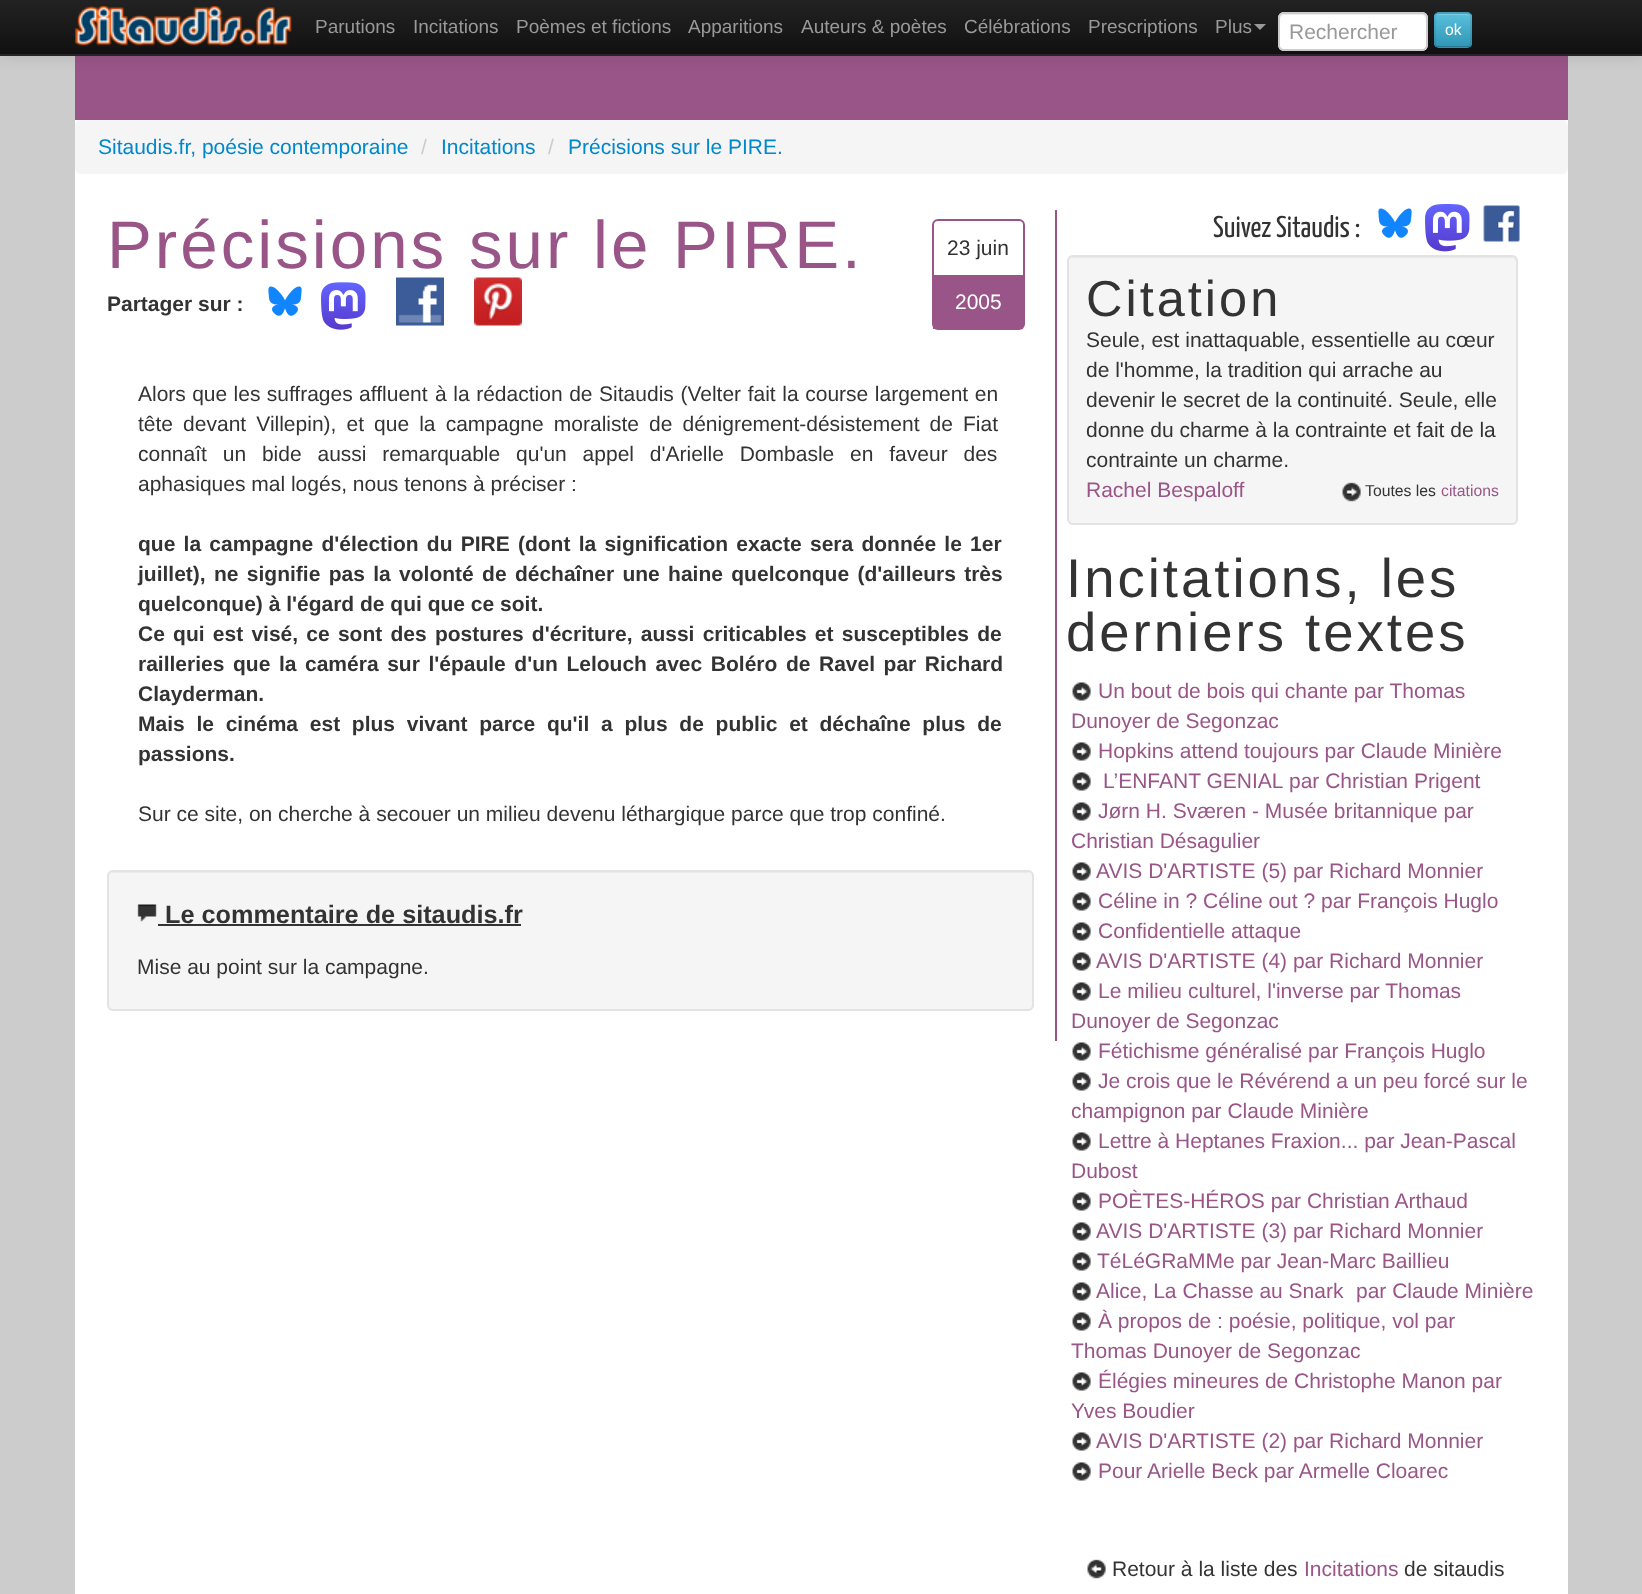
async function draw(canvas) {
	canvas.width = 1642;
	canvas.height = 1594;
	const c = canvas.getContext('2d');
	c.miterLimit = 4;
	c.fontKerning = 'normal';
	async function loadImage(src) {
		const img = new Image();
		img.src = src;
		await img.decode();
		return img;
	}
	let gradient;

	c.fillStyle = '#ccc';
	c.fillRect(0, 0, 1642, 1594);
	c.fillStyle = '#958';
	c.fillRect(75, 56, 1493, 64);
	c.fillStyle = '#0000001a';
	c.filter = 'blur(7.5px)';
	c.beginPath();
	c.rect(0, 2, 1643, 55);
	c.fill();
	c.filter = 'none';
	gradient = c.createLinearGradient(821, 0, 821, 54);
	gradient.addColorStop(0, '#222');
	gradient.addColorStop(1, '#111');
	c.fillStyle = gradient;
	c.fillRect(0, 0, 1642, 54);
	c.fillStyle = '#252525';
	c.fillRect(0, 54, 1642, 2);
	c.drawImage(await loadImage('img1.png'), 75, 6, 217, 40);
	c.font = '19px Liberation Sans';
	c.fillStyle = '#999';
	for (const [text, x, y] of [
		['Parutions', 315, 33],
		['Incitations', 413, 33],
		['Poèmes et fictions', 516, 33],
		['Apparitions', 688, 33],
		['Auteurs & poètes', 801, 33],
		['Célébrations', 964, 33],
		['Prescriptions', 1088, 33],
		['Plus', 1215, 33],
	]) {
		c.fillText(text, x, y);
	}
	c.beginPath();
	c.moveTo(1254, 24);
	c.lineTo(1266, 24);
	c.lineTo(1260, 30);
	c.closePath();
	c.fill();
	c.fillStyle = '#fff';
	c.beginPath();
	c.roundRect(1278, 12, 150, 39, 6);
	c.fill();
	c.fillStyle = '#ececec';
	c.beginPath();
	c.moveTo(1284, 15);
	c.lineTo(1422, 15);
	c.bezierCurveTo(1424, 15, 1426, 17, 1426, 20);
	c.lineTo(1426, 46);
	c.lineTo(1425, 49);
	c.bezierCurveTo(1426, 48, 1427, 46, 1427, 45);
	c.lineTo(1427, 19);
	c.bezierCurveTo(1427, 16, 1425, 14, 1422, 14);
	c.lineTo(1285, 14);
	c.bezierCurveTo(1282, 14, 1280, 16, 1280, 19);
	c.lineTo(1280, 20);
	c.bezierCurveTo(1280, 17, 1282, 15, 1284, 15);
	c.closePath();
	c.fill();
	c.beginPath();
	c.roundRect(1279, 13, 148, 37, 5);
	c.strokeStyle = '#ccc';
	c.lineWidth = 2;
	c.stroke();
	c.font = '21px Liberation Sans';
	c.fillStyle = '#999';
	c.fillText('Rechercher', 1289, 39);
	c.fillStyle = '#49afcd';
	c.beginPath();
	c.roundRect(1434, 12, 38, 36, 5);
	c.fill();
	c.save();
	c.beginPath();
	c.roundRect(1434, 12, 38, 36, 5);
	c.clip();
	gradient = c.createLinearGradient(1453, 13, 1453, 47);
	gradient.addColorStop(0, '#5bc0de');
	gradient.addColorStop(1, '#2f96b4');
	c.fillStyle = gradient;
	c.fillRect(1434, 14, 38, 33);
	c.restore();
	c.fillStyle = '#7acbe3';
	c.beginPath();
	c.moveTo(1438, 15);
	c.lineTo(1467, 15);
	c.bezierCurveTo(1469, 15, 1470, 16, 1470, 18);
	c.bezierCurveTo(1470, 13, 1466.5, 14, 1462.5, 14);
	c.lineTo(1443.5, 14);
	c.bezierCurveTo(1439.5, 14, 1436, 13, 1436, 18);
	c.bezierCurveTo(1436, 16, 1437, 15, 1438, 15);
	c.closePath();
	c.fill();
	c.beginPath();
	c.moveTo(1469.5, 46);
	c.bezierCurveTo(1469, 47, 1468, 47, 1467, 47);
	c.lineTo(1438.5, 47);
	c.bezierCurveTo(1437.5, 47, 1436.5, 47, 1436, 46);
	c.strokeStyle = '#00000040';
	c.lineWidth = 1.5;
	c.stroke();
	c.beginPath();
	c.moveTo(1436, 46);
	c.bezierCurveTo(1434, 44.5, 1435, 41, 1435, 39);
	c.lineTo(1435, 30);
	c.bezierCurveTo(1435, 9.5, 1432, 13, 1453, 13);
	c.bezierCurveTo(1473.5, 13, 1471, 9.5, 1471, 30);
	c.lineTo(1471, 39);
	c.bezierCurveTo(1471, 41, 1471.5, 44.5, 1469.5, 46);
	c.strokeStyle = '#0000001a';
	c.stroke();
	c.font = '15.75px Liberation Sans';
	c.fillStyle = '#fff';
	c.fillText('ok', 1445, 35);
	c.fillRect(75, 120, 1493, 1474);
	c.fillStyle = '#f5f5f5';
	c.beginPath();
	c.roundRect(75, 120, 1493, 54, 6);
	c.fill();
	c.font = '21px Liberation Sans';
	c.fillStyle = '#08c';
	c.fillText('Sitaudis.fr, poésie contemporaine', 98, 154);
	c.fillStyle = '#ccc';
	c.fillText('/', 421, 154);
	c.fillStyle = '#08c';
	c.fillText('Incitations', 441, 154);
	c.fillStyle = '#ccc';
	c.fillText('/', 548, 154);
	c.fillStyle = '#08c';
	c.fillText('Précisions sur le PIRE.', 568, 154);
	c.fillStyle = '#958';
	c.fillRect(1055, 210, 2, 831);
	c.letterSpacing = '3px';
	c.font = '67.25px Liberation Sans';
	c.fillText('Précisions sur le PIRE.', 107, 268);
	c.beginPath();
	c.roundRect(933, 220, 91, 109, 5);
	c.strokeStyle = '#958';
	c.lineWidth = 2;
	c.stroke();
	c.letterSpacing = '0px';
	c.font = '21px Liberation Sans';
	c.fillStyle = '#333';
	c.fillText('23 juin', 947, 255);
	c.fillStyle = '#958';
	c.fillRect(933, 275, 90, 54);
	c.fillStyle = '#fff';
	c.fillText('2005', 955, 309);
	c.font = 'bold 21px Liberation Sans';
	c.fillStyle = '#333';
	c.fillText('Partager sur :', 107, 311);
	c.drawImage(await loadImage('img2.png'), 268, 286, 34, 30);
	c.drawImage(await loadImage('img3.png'), 321, 282, 45, 48);
	c.drawImage(await loadImage('img4.png'), 396, 277, 48, 49);
	c.drawImage(await loadImage('img5.png'), 474, 277, 48, 49);
	c.wordSpacing = '0.5px';
	c.font = '21px Liberation Sans';
	c.fillText('Alors que les suffrages affluent', 138, 401);
	c.wordSpacing = '0.75px';
	c.fillText('à la rédaction de Sitaudis (Velter fait la course largement en', 435, 401);
	c.wordSpacing = '4.25px';
	c.fillText('tête devant Villepin), et que la campagne moraliste de dénigrement-désistement de Fiat', 138, 431);
	c.wordSpacing = '10px';
	c.fillText('connaît un bide aussi remarquable qu\'un appel d\'Arielle Dombasle en faveur des', 138, 461);
	c.wordSpacing = '0px';
	c.fillText('aphasiques mal logés, nous tenons à préciser :', 138, 491);
	c.wordSpacing = '2.4px';
	c.font = 'bold 21px Liberation Sans';
	c.fillText('que la campagne d\'élection du PIRE (dont la signification exacte sera donnée le 1er', 138, 551);
	c.wordSpacing = '2.5px';
	c.fillText('juillet), ne signifie pas la volonté de déchaîner une haine quelconque (d\'ailleurs très', 138, 581);
	c.wordSpacing = '0px';
	c.fillText('quelconque) à l\'égard de qui que ce soit.', 138, 611);
	c.wordSpacing = '2.4px';
	c.fillText('Ce qui est visé, ce sont des postures d\'écriture, aussi criticables et susceptibles de', 138, 641);
	c.wordSpacing = '2.75px';
	c.fillText('railleries que la caméra sur l\'épaule d\'un Lelouch avec Boléro de Ravel par Richard', 138, 671);
	c.wordSpacing = '0px';
	c.fillText('Clayderman.', 138, 701);
	c.wordSpacing = '5.9px';
	c.fillText('Mais le cinéma est plus vivant parce qu\'il a plus de public et déchaîne plus de', 138, 731);
	c.wordSpacing = '0px';
	c.fillText('passions.', 138, 761);
	c.font = '21px Liberation Sans';
	c.fillText('Sur ce site, on cherche à secouer un milieu devenu léthargique parce que trop confiné.', 138, 821);
	c.fillStyle = '#f5f5f5';
	c.beginPath();
	c.roundRect(107, 870, 927, 141, 6);
	c.fill();
	c.fillStyle = '#e9e9e9';
	c.beginPath();
	c.moveTo(112, 873);
	c.lineTo(1028, 873);
	c.bezierCurveTo(1030, 873, 1032, 875, 1032, 878);
	c.bezierCurveTo(1032, 875, 1030, 872, 1027, 872);
	c.lineTo(113, 872);
	c.bezierCurveTo(110, 872, 108, 875, 108, 878);
	c.bezierCurveTo(108, 875, 110, 873, 112, 873);
	c.closePath();
	c.fill();
	c.beginPath();
	c.roundRect(108, 871, 925, 139, 5);
	c.strokeStyle = '#e3e3e3';
	c.stroke();
	c.drawImage(await loadImage('img6.png'), 137, 904, 20, 18);
	c.font = 'bold 25.25px Liberation Sans';
	c.fillStyle = '#333';
	c.fillText('Le commentaire de sitaudis.fr', 165, 923);
	c.fillRect(158, 924, 363, 2);
	c.font = '21px Liberation Sans';
	c.fillText('Mise au point sur la campagne.', 137, 974);
	c.font = '30px Yanone Kaffeesatz';
	c.fillText('Suivez Sitaudis :', 1213, 237);
	c.drawImage(await loadImage('img2.png'), 1378, 208, 34, 30);
	c.drawImage(await loadImage('img7.png'), 1425, 204, 45, 48);
	c.drawImage(await loadImage('img8.png'), 1483, 205, 37, 37);
	c.fillStyle = '#f5f5f5';
	c.beginPath();
	c.roundRect(1067, 255, 451, 270, 6);
	c.fill();
	c.fillStyle = '#e9e9e9';
	c.beginPath();
	c.moveTo(1072, 258);
	c.lineTo(1512, 258);
	c.bezierCurveTo(1514, 258, 1516, 260, 1516, 262);
	c.lineTo(1516, 520);
	c.lineTo(1515, 523);
	c.bezierCurveTo(1516, 522, 1517, 520, 1517, 519);
	c.lineTo(1517, 262);
	c.bezierCurveTo(1517, 259, 1515, 257, 1512, 257);
	c.lineTo(1073, 257);
	c.bezierCurveTo(1070, 257, 1068, 259, 1068, 262);
	c.bezierCurveTo(1068, 260, 1070, 258, 1072, 258);
	c.closePath();
	c.fill();
	c.beginPath();
	c.roundRect(1068, 256, 449, 268, 5);
	c.stroke();
	c.letterSpacing = '3px';
	c.font = '50.5px Liberation Sans';
	c.fillStyle = '#333';
	c.fillText('Citation', 1086, 316);
	c.letterSpacing = '0px';
	c.font = '21px Liberation Sans';
	for (const [text, x, y] of [
		['Seule, est inattaquable, essentielle au cœur', 1086, 347],
		['de l\'homme, la tradition qui arrache au', 1086, 377],
		['devenir le secret de la continuité. Seule, elle', 1086, 407],
		['donne du charme à la contrainte et fait de la', 1086, 437],
		['contrainte un charme.', 1086, 467],
	]) {
		c.fillText(text, x, y);
	}
	c.fillStyle = '#958';
	c.fillText('Rachel Bespaloff', 1086, 497);
	c.drawImage(await loadImage('img9.png'), 1342, 482, 19, 20);
	c.font = '15.75px Liberation Sans';
	c.fillStyle = '#333';
	c.fillText('Toutes les', 1365, 496);
	c.fillStyle = '#958';
	c.fillText('citations', 1441, 496);
	c.letterSpacing = '3px';
	c.font = '54.5px Liberation Sans';
	c.fillStyle = '#333';
	c.fillText('Incitations, les', 1066, 597);
	c.fillText('derniers textes', 1066, 651);
	c.drawImage(await loadImage('img10.png'), 1072, 682, 19, 19);
	c.letterSpacing = '0px';
	c.font = '21px Liberation Sans';
	c.fillStyle = '#958';
	c.fillText('Un bout de bois qui chante par Thomas', 1098, 698);
	c.fillText('Dunoyer de Segonzac', 1071, 728);
	c.drawImage(await loadImage('img10.png'), 1072, 742, 19, 19);
	c.fillText('Hopkins attend toujours par Claude Minière', 1098, 758);
	c.drawImage(await loadImage('img10.png'), 1072, 772, 19, 19);
	c.fillText('L’ENFANT GENIAL', 1103, 788);
	c.fillText('par Christian Prigent', 1289, 788);
	c.drawImage(await loadImage('img10.png'), 1072, 802, 19, 19);
	c.fillText('Jørn H. Sværen - Musée britannique par', 1098, 818);
	c.fillText('Christian Désagulier', 1071, 848);
	c.drawImage(await loadImage('img10.png'), 1072, 862, 19, 19);
	c.fillText('AVIS D\'ARTISTE (5) par Richard Monnier', 1096, 878);
	c.drawImage(await loadImage('img10.png'), 1072, 892, 19, 19);
	c.fillText('Céline in ? Céline out ? par François Huglo', 1098, 908);
	c.drawImage(await loadImage('img10.png'), 1072, 922, 19, 19);
	c.fillText('Confidentielle attaque', 1098, 938);
	c.drawImage(await loadImage('img10.png'), 1072, 952, 19, 19);
	c.fillText('AVIS D\'ARTISTE (4) par Richard Monnier', 1096, 968);
	c.drawImage(await loadImage('img10.png'), 1072, 982, 19, 19);
	c.fillText('Le milieu culturel, l\'inverse par Thomas', 1098, 998);
	c.fillText('Dunoyer de Segonzac', 1071, 1028);
	c.drawImage(await loadImage('img10.png'), 1072, 1042, 19, 19);
	c.fillText('Fétichisme généralisé par François Huglo', 1098, 1058);
	c.drawImage(await loadImage('img10.png'), 1072, 1072, 19, 19);
	c.fillText('Je crois que le Révérend a un peu forcé sur le', 1098, 1088);
	c.fillText('champignon par Claude Minière', 1071, 1118);
	c.drawImage(await loadImage('img10.png'), 1072, 1132, 19, 19);
	c.fillText('Lettre à Heptanes Fraxion... par Jean-Pascal', 1098, 1148);
	c.fillText('Dubost', 1071, 1178);
	c.drawImage(await loadImage('img10.png'), 1072, 1192, 19, 19);
	c.fillText('POÈTES-HÉROS par Christian Arthaud', 1098, 1208);
	c.drawImage(await loadImage('img10.png'), 1072, 1222, 19, 19);
	c.fillText('AVIS D\'ARTISTE (3) par Richard Monnier', 1096, 1238);
	c.drawImage(await loadImage('img10.png'), 1072, 1252, 19, 19);
	c.fillText('TéLéGRaMMe par Jean-Marc Baillieu', 1097, 1268);
	c.drawImage(await loadImage('img10.png'), 1072, 1282, 19, 19);
	c.fillText('Alice, La Chasse au Snark', 1096, 1298);
	c.fillText('par Claude Minière', 1356, 1298);
	c.drawImage(await loadImage('img10.png'), 1072, 1312, 19, 19);
	c.fillText('À propos de : poésie, politique, vol par', 1098, 1328);
	c.fillText('Thomas Dunoyer de Segonzac', 1071, 1358);
	c.drawImage(await loadImage('img10.png'), 1072, 1372, 19, 19);
	c.fillText('Élégies mineures de Christophe Manon par', 1098, 1388);
	c.fillText('Yves Boudier', 1071, 1418);
	c.drawImage(await loadImage('img10.png'), 1072, 1432, 19, 19);
	c.fillText('AVIS D\'ARTISTE (2) par Richard Monnier', 1096, 1448);
	c.drawImage(await loadImage('img10.png'), 1072, 1462, 19, 19);
	c.fillText('Pour Arielle Beck par Armelle Cloarec', 1098, 1478);
	c.drawImage(await loadImage('img11.png'), 1087, 1559, 19, 20);
	c.fillStyle = '#333';
	c.fillText('Retour à la liste des', 1112, 1576);
	c.fillStyle = '#958';
	c.fillText('Incitations', 1304, 1576);
	c.fillStyle = '#333';
	c.fillText('de sitaudis', 1404, 1576);
}

draw(document.querySelector('canvas'));
